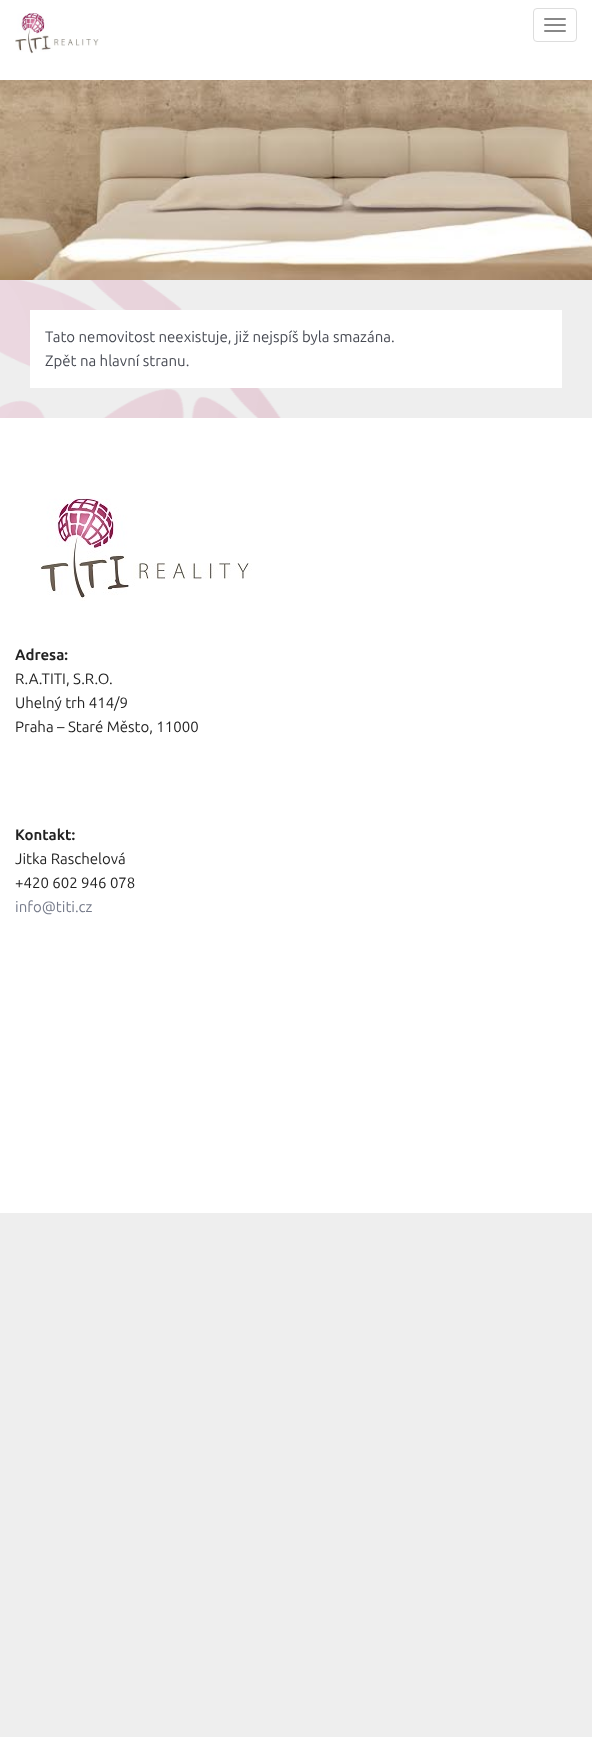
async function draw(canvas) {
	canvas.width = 592;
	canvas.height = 1737;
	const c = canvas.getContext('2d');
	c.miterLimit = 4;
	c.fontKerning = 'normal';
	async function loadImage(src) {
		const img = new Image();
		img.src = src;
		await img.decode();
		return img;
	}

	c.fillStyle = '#eee';
	c.fillRect(0, 0, 592, 1737);
	c.drawImage(await loadImage('img1.png'), 0, 280, 281, 138);
	c.fillStyle = '#fff';
	c.fillRect(0, 0, 592, 80);
	c.drawImage(await loadImage('img2.png'), 15, 13, 84, 41);
	c.beginPath();
	c.roundRect(533.5, 8.5, 43, 33, 3.5);
	c.strokeStyle = '#ddd';
	c.stroke();
	c.fillStyle = '#888';
	c.beginPath();
	c.roundRect(544, 18, 22, 2, 1);
	c.fill();
	c.beginPath();
	c.roundRect(544, 24, 22, 2, 1);
	c.fill();
	c.beginPath();
	c.roundRect(544, 30, 22, 2, 1);
	c.fill();
	c.drawImage(await loadImage('img3.png'), 0, 80, 592, 200);
	c.fillStyle = '#fff';
	c.fillRect(30, 310, 532, 78);
	c.font = '15px Ubuntu';
	c.fillStyle = '#474a53';
	c.fillText('Tato nemovitost neexistuje, již nejspíš byla smazána.', 45, 342);
	c.fillText('Zpět na hlavní stranu.', 45, 366);
	c.fillStyle = '#fff';
	c.fillRect(0, 418, 592, 795);
	c.drawImage(await loadImage('img4.png'), 40, 498, 212, 103);
	c.font = 'bold 15px Ubuntu';
	c.fillStyle = '#222';
	c.fillText('Adresa:', 15, 660);
	c.font = '15px Ubuntu';
	for (const [text, x, y] of [
		['R.A.TITI, S.R.O.', 15, 684],
		['Uhelný trh 414/9', 15, 708],
		['Praha – Staré Město, 11000', 15, 732],
	]) {
		c.fillText(text, x, y);
	}
	c.font = 'bold 15px Ubuntu';
	c.fillText('Kontakt:', 15, 840);
	c.font = '15px Ubuntu';
	c.fillText('Jitka Raschelová', 15, 864);
	c.fillText('+420 602 946 078', 15, 888);
	c.fillStyle = '#767b8a';
	c.fillText('info@titi.cz', 15, 912);
}

draw(document.querySelector('canvas'));
